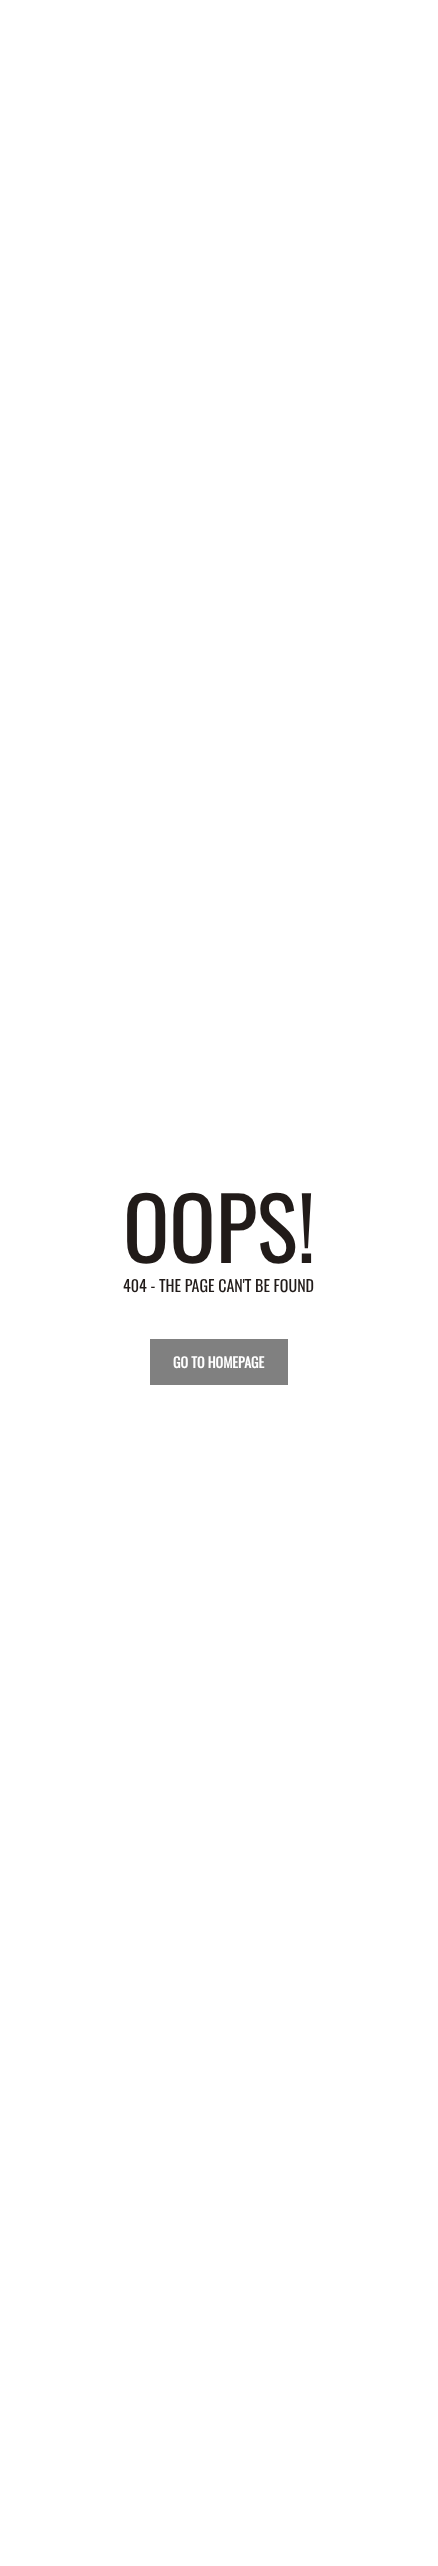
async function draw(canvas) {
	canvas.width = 438;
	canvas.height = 2566;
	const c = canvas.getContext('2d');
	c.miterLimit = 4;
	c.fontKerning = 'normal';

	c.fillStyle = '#fff';
	c.fillRect(0, 0, 438, 2566);
	c.font = '86px Oswald';
	c.fillStyle = '#211b19';
	c.fillText('OOPS!', 123, 1263);
	c.font = '16px Oswald';
	c.fillText('404 - THE PAGE CAN\'T BE FOUND', 123, 1292);
	c.fillStyle = '#808080';
	c.fillRect(150, 1339, 138, 46);
	c.font = 'bold 14px Oswald';
	c.fillStyle = '#fff';
	c.fillText('GO TO HOMEPAGE', 173, 1368);
}

draw(document.querySelector('canvas'));
